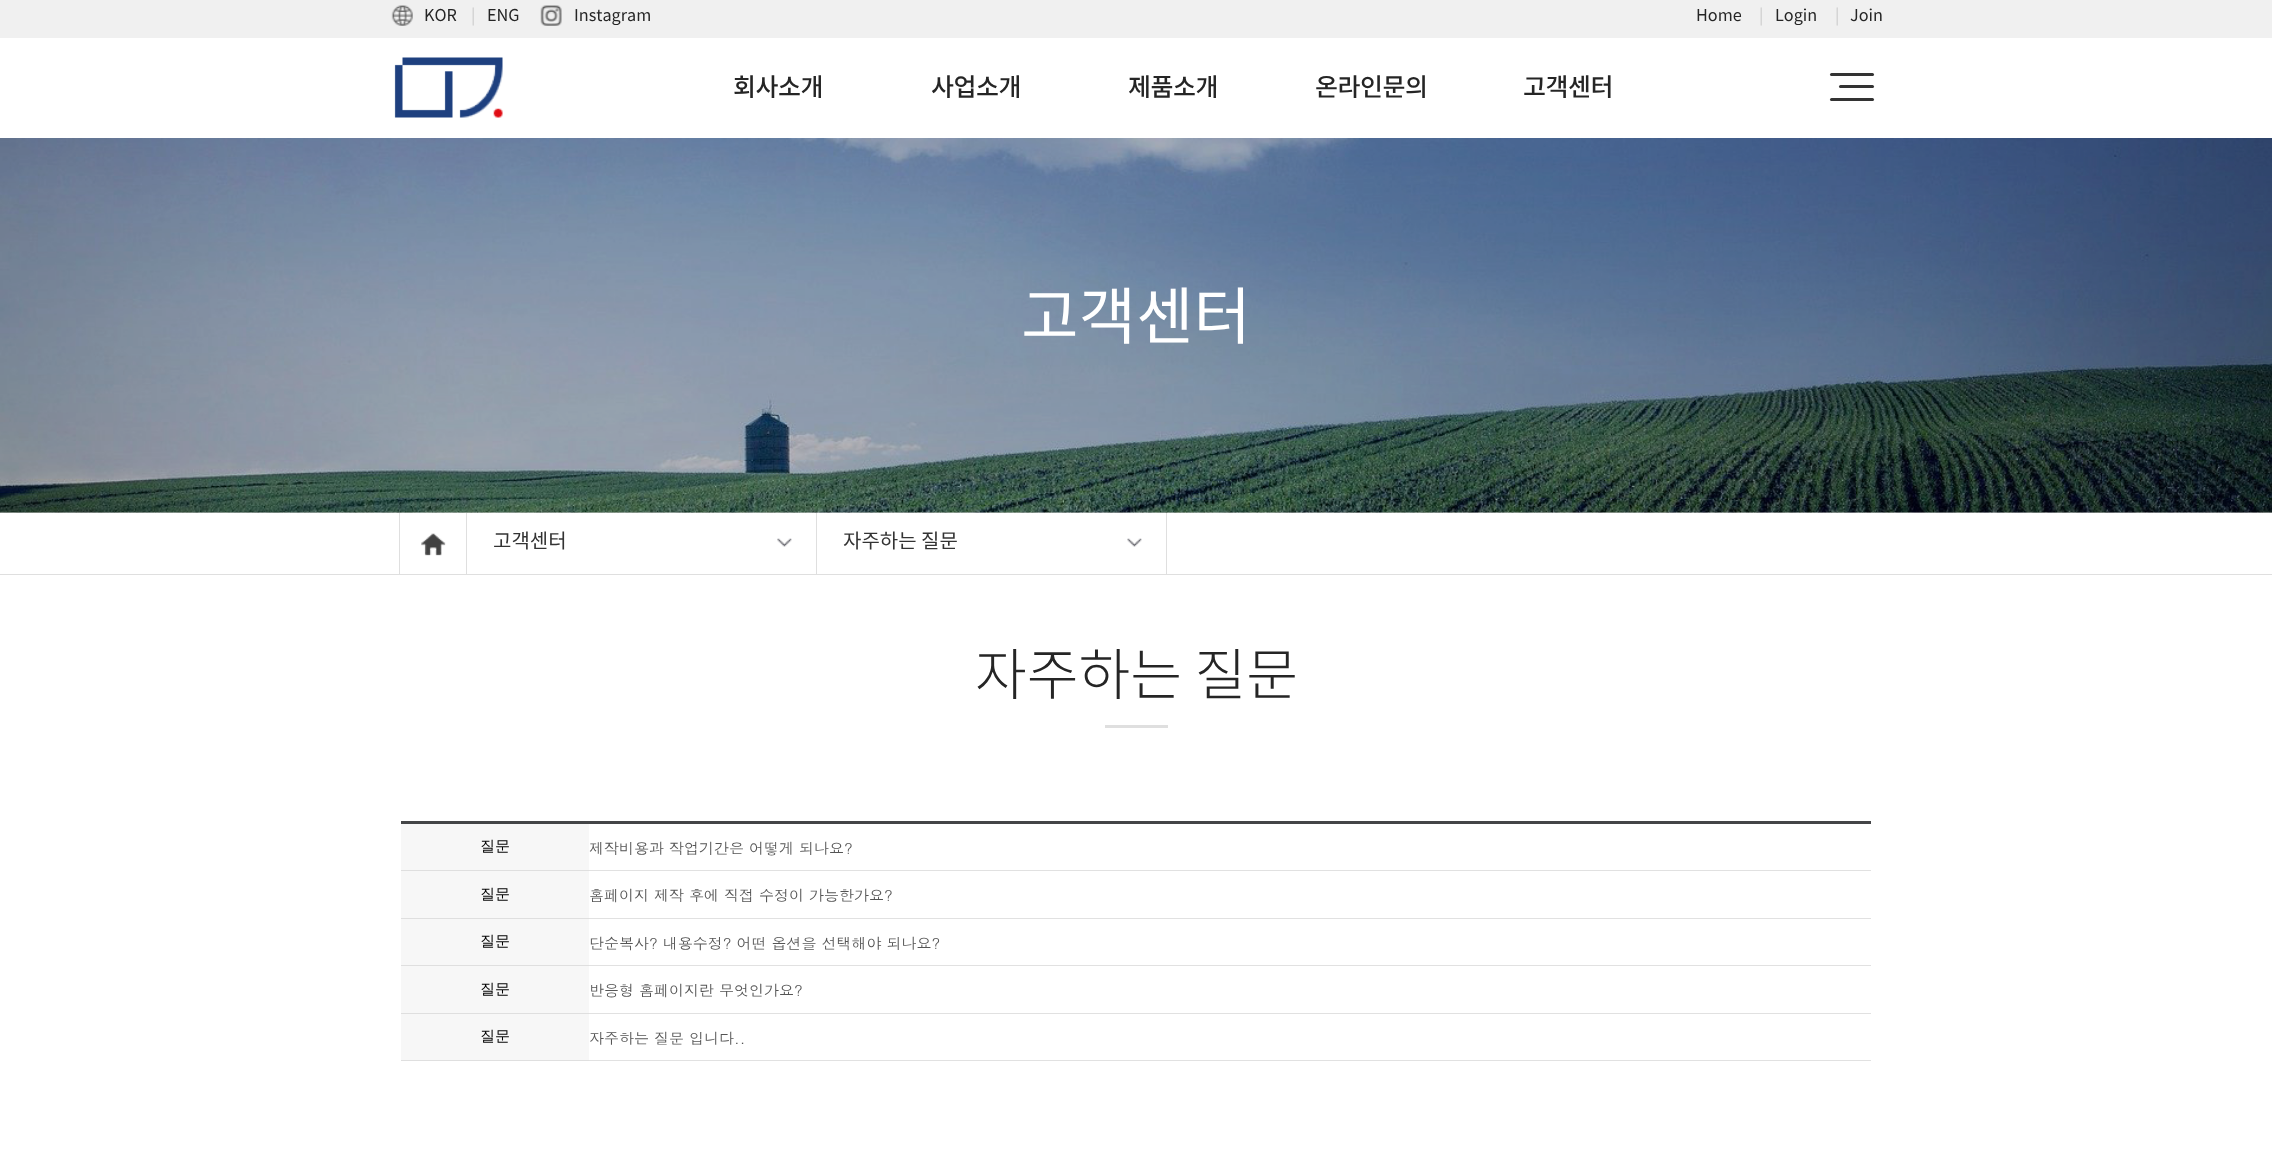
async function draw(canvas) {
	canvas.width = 2272;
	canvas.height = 1174;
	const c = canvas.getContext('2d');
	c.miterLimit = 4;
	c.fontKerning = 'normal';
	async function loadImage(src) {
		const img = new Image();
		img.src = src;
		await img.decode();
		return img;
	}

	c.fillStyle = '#fff';
	c.fillRect(0, 0, 2272, 1174);
	c.fillStyle = '#ccc';
	c.fillRect(0, 512, 2272, 1);
	c.fillStyle = '#f0f0f0';
	c.fillRect(0, 0, 2272, 38);
	c.drawImage(await loadImage('img1.png'), 391, 5, 22, 21);
	c.font = '16.25px Noto Sans KR';
	c.fillStyle = '#252525';
	c.fillText('KOR', 424, 21);
	c.fillStyle = '#ccc';
	c.fillText('|', 471, 21);
	c.fillStyle = '#252525';
	c.fillText('ENG', 487, 21);
	c.drawImage(await loadImage('img2.png'), 540, 5, 22, 21);
	c.fillText('Instagram', 574, 21);
	c.fillText('Home', 1696, 21);
	c.fillStyle = '#ccc';
	c.fillText('|', 1759, 21);
	c.fillStyle = '#252525';
	c.fillText('Login', 1775, 21);
	c.fillStyle = '#ccc';
	c.fillText('|', 1835, 21);
	c.fillStyle = '#252525';
	c.fillText('Join', 1850, 21);
	c.drawImage(await loadImage('img3.png'), 394, 57, 109, 61);
	c.fillStyle = '#333';
	c.beginPath();
	c.roundRect(1830, 73, 44, 3, 1.5);
	c.fill();
	c.beginPath();
	c.roundRect(1839, 85, 35, 3, 1.5);
	c.fill();
	c.beginPath();
	c.roundRect(1830, 98, 44, 3, 1.5);
	c.fill();
	c.letterSpacing = '-0.5px';
	c.font = '500 25px Noto Sans KR';
	c.fillStyle = '#252525';
	for (const [text, x, y] of [
		['회사소개', 733, 96],
		['사업소개', 931, 96],
		['제품소개', 1128, 96],
		['온라인문의', 1315, 96],
		['고객센터', 1523, 96],
	]) {
		c.fillText(text, x, y);
	}
	c.drawImage(await loadImage('img4.png'), 0, 138, 2272, 375);
	c.letterSpacing = '0px';
	c.font = '62.5px Noto Sans KR';
	c.fillStyle = '#fff';
	c.fillText('고객센터', 1021, 339);
	c.fillStyle = '#dfdfdf';
	c.fillRect(0, 574, 2272, 1);
	c.drawImage(await loadImage('img5.png'), 421, 533, 25, 23);
	for (const [x, y, w, h, color] of [
		[466, 513, 1, 62, '#dfdfdf'],
		[399, 513, 1, 62, '#dfdfdf'],
		[816, 513, 1, 62, '#dfdfdf'],
	]) {
		c.fillStyle = color;
		c.fillRect(x, y, w, h);
	}
	c.font = '20px Noto Sans KR';
	c.fillStyle = '#333';
	c.fillText('고객센터', 493, 548);
	c.drawImage(await loadImage('img6.png'), 777, 538, 15, 9);
	c.fillStyle = '#dfdfdf';
	c.fillRect(1166, 513, 1, 62);
	c.fillStyle = '#333';
	c.fillText('자주하는 질문', 843, 548);
	c.drawImage(await loadImage('img7.png'), 1127, 538, 15, 9);
	c.font = '300 56.25px Noto Sans KR';
	c.fillStyle = '#252525';
	c.fillText('자주하는 질문', 975, 695);
	for (const [x, y, w, h, color] of [
		[1105, 725, 63, 3, '#dfdfdf'],
		[401, 821, 1470, 3, '#444547'],
		[401, 824, 188, 46, '#f7f7f7'],
		[401, 870, 188, 1, '#dfdfdf'],
	]) {
		c.fillStyle = color;
		c.fillRect(x, y, w, h);
	}
	c.font = '500 15px WenQuanYi Zen Hei';
	c.fillStyle = '#000';
	c.fillText('질문', 480, 851);
	c.fillStyle = '#e1e1e1';
	c.fillRect(589, 870, 1282, 1);
	c.font = '15px Dotum';
	c.fillStyle = '#555';
	c.fillText('제작비용과 작업기간은 어떻게 되나요?', 589, 854);
	c.fillStyle = '#f7f7f7';
	c.fillRect(401, 871, 188, 47);
	c.fillStyle = '#dfdfdf';
	c.fillRect(401, 918, 188, 1);
	c.font = '500 15px WenQuanYi Zen Hei';
	c.fillStyle = '#000';
	c.fillText('질문', 480, 899);
	c.fillStyle = '#e1e1e1';
	c.fillRect(589, 918, 1282, 1);
	c.font = '15px Dotum';
	c.fillStyle = '#555';
	c.fillText('홈페이지 제작 후에 직접 수정이 가능한가요?', 589, 901);
	c.fillStyle = '#f7f7f7';
	c.fillRect(401, 919, 188, 46);
	c.fillStyle = '#dfdfdf';
	c.fillRect(401, 965, 188, 1);
	c.font = '500 15px WenQuanYi Zen Hei';
	c.fillStyle = '#000';
	c.fillText('질문', 480, 946);
	c.fillStyle = '#e1e1e1';
	c.fillRect(589, 965, 1282, 1);
	c.font = '15px Dotum';
	c.fillStyle = '#555';
	c.fillText('단순복사? 내용수정? 어떤 옵션을 선택해야 되나요?', 589, 949);
	c.fillStyle = '#f7f7f7';
	c.fillRect(401, 966, 188, 47);
	c.fillStyle = '#dfdfdf';
	c.fillRect(401, 1013, 188, 1);
	c.font = '500 15px WenQuanYi Zen Hei';
	c.fillStyle = '#000';
	c.fillText('질문', 480, 994);
	c.fillStyle = '#e1e1e1';
	c.fillRect(589, 1013, 1282, 1);
	c.font = '15px Dotum';
	c.fillStyle = '#555';
	c.fillText('반응형 홈페이지란 무엇인가요?', 589, 996);
	c.fillStyle = '#f7f7f7';
	c.fillRect(401, 1014, 188, 46);
	c.fillStyle = '#dfdfdf';
	c.fillRect(401, 1060, 188, 1);
	c.font = '500 15px WenQuanYi Zen Hei';
	c.fillStyle = '#000';
	c.fillText('질문', 480, 1041);
	c.fillStyle = '#e1e1e1';
	c.fillRect(589, 1060, 1282, 1);
	c.font = '15px Dotum';
	c.fillStyle = '#555';
	c.fillText('자주하는 질문 입니다..', 589, 1044);
}

draw(document.querySelector('canvas'));
